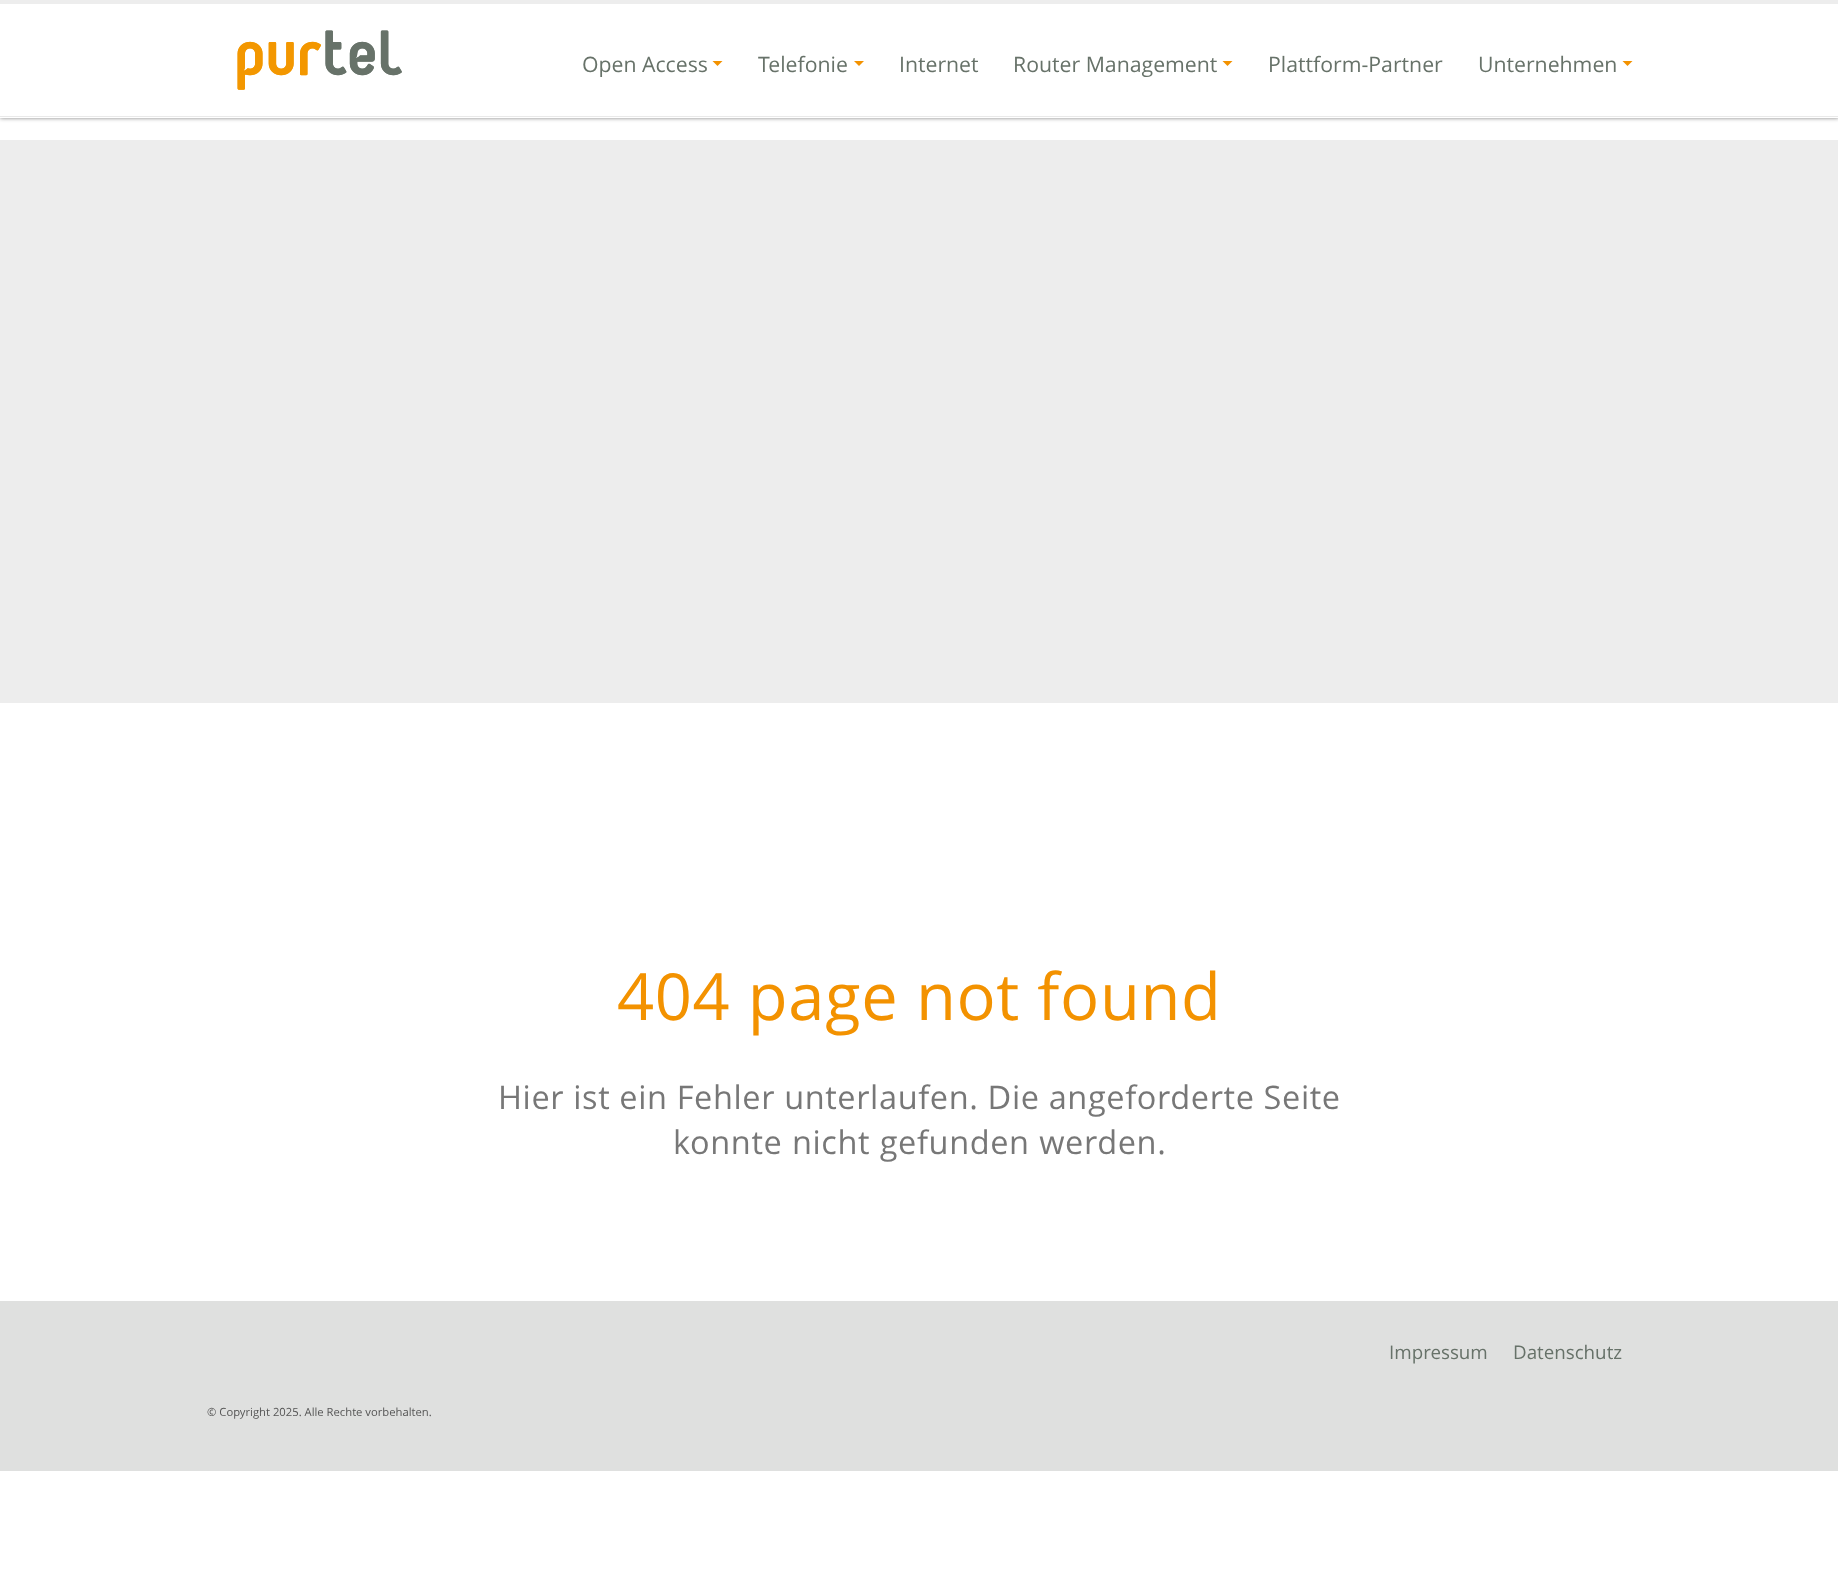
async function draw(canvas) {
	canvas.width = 1838;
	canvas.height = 1575;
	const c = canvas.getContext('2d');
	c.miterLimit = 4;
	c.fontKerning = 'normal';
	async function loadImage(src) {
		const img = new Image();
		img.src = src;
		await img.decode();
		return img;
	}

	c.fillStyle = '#fff';
	c.fillRect(0, 0, 1838, 1575);
	c.fillStyle = '#00000080';
	c.filter = 'blur(2px)';
	c.beginPath();
	c.rect(0, 0, 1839, 118);
	c.fill();
	c.filter = 'none';
	for (const [x, y, w, h, color] of [
		[0, 4, 1838, 114, '#fff'],
		[0, 0, 1838, 4, '#ededed'],
		[0, 116, 1838, 1, '#e9e9e9'],
	]) {
		c.fillStyle = color;
		c.fillRect(x, y, w, h);
	}
	c.drawImage(await loadImage('img1.png'), 237, 30, 165, 60);
	c.font = '21.25px Open Sans';
	c.fillStyle = '#677269';
	c.fillText('Open Access', 582, 72);
	c.fillStyle = '#f39200';
	c.beginPath();
	c.moveTo(712.5, 61);
	c.lineTo(722.5, 61);
	c.lineTo(717.5, 66);
	c.closePath();
	c.fill();
	c.fillStyle = '#677269';
	c.fillText('Telefonie', 758, 72);
	c.fillStyle = '#f39200';
	c.beginPath();
	c.moveTo(854, 61);
	c.lineTo(864, 61);
	c.lineTo(859, 66);
	c.closePath();
	c.fill();
	c.fillStyle = '#677269';
	c.fillText('Internet', 899, 72);
	c.fillText('Router Management', 1013, 72);
	c.fillStyle = '#f39200';
	c.beginPath();
	c.moveTo(1222.5, 61);
	c.lineTo(1232.5, 61);
	c.lineTo(1227.5, 66);
	c.closePath();
	c.fill();
	c.fillStyle = '#677269';
	c.fillText('Plattform-Partner', 1268, 72);
	c.fillText('Unternehmen', 1478, 72);
	c.fillStyle = '#f39200';
	c.beginPath();
	c.moveTo(1622.5, 61);
	c.lineTo(1632.5, 61);
	c.lineTo(1627.5, 66);
	c.closePath();
	c.fill();
	c.fillStyle = '#ededed';
	c.fillRect(0, 140, 1838, 563);
	c.letterSpacing = '0.62px';
	c.font = '65px Open Sans';
	c.fillStyle = '#f39200';
	c.fillText('404 page not found', 617, 1020);
	c.font = '32.5px Open Sans';
	c.fillStyle = '#777';
	c.fillText('Hier ist ein Fehler unterlaufen. Die angeforderte Seite', 498, 1109);
	c.wordSpacing = '0.5px';
	c.fillText('konnte nicht gefunden werden.', 673, 1154);
	c.fillStyle = '#dfe0df';
	c.fillRect(0, 1301, 1838, 170);
	c.letterSpacing = '0px';
	c.wordSpacing = '0px';
	c.font = '18.75px Open Sans';
	c.fillStyle = '#677269';
	c.fillText('Impressum', 1389, 1359);
	c.fillText('Datenschutz', 1513, 1359);
	c.font = '11.25px Open Sans';
	c.fillStyle = '#555';
	c.fillText('© Copyright 2025. Alle Rechte vorbehalten.', 207, 1416);
}

draw(document.querySelector('canvas'));
